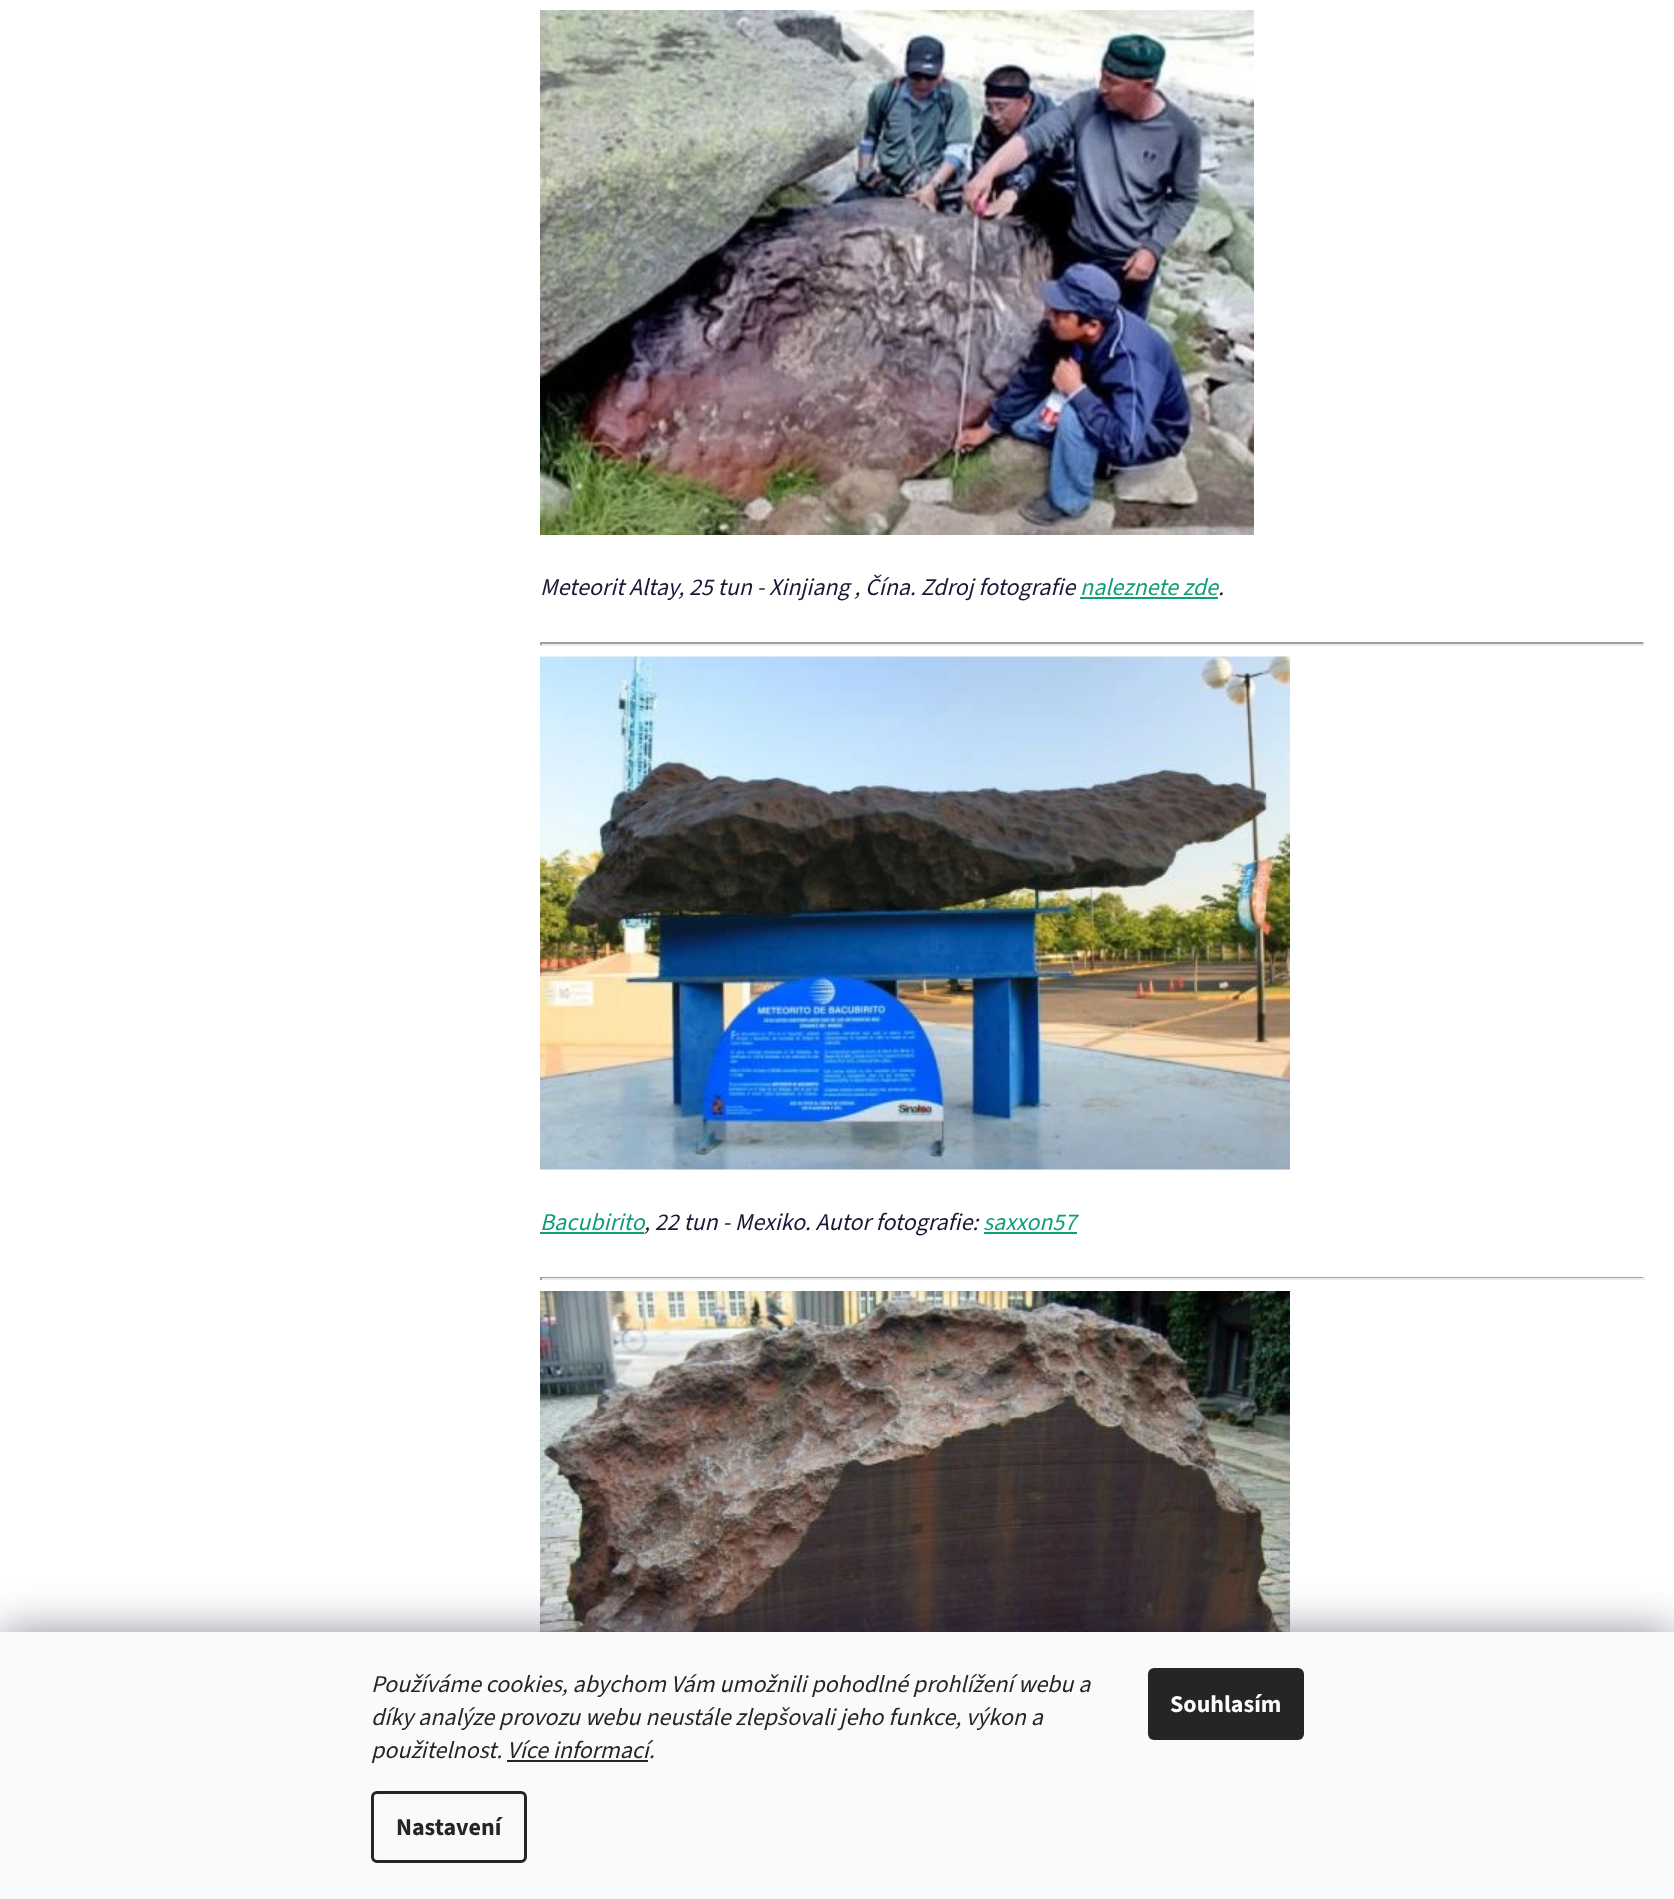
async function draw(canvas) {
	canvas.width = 1674;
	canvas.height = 1899;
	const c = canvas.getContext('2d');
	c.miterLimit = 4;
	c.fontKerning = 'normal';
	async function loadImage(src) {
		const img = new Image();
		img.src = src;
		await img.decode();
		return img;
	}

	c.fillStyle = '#fff';
	c.fillRect(0, 0, 1674, 1899);
	c.drawImage(await loadImage('img1.png'), 540, 10, 714, 525);
	c.font = 'italic 24px "Source Sans 3"';
	c.fillStyle = '#1a1937';
	c.fillText('Meteorit Altay, 25 tun - Xinjiang , Čína. Zdroj fotografie', 540, 595);
	c.fillStyle = '#109e77';
	c.fillText('naleznete zde', 1080, 595);
	c.fillStyle = '#1a1937';
	c.fillText('.', 1218, 595);
	for (const [x, y, w, h, color] of [
		[1080, 597, 138, 2, '#109e77'],
		[540, 642, 1104, 2, '#9f9f9f'],
		[1643, 642, 2, 3, '#eee'],
		[540, 644, 1104, 2, '#eee'],
		[540, 642, 2, 3, '#9f9f9f'],
	]) {
		c.fillStyle = color;
		c.fillRect(x, y, w, h);
	}
	c.drawImage(await loadImage('img2.png'), 540, 656, 750, 514);
	c.fillStyle = '#109e77';
	c.fillText('Bacubirito', 540, 1230);
	c.fillStyle = '#1a1937';
	c.fillText(', 22 tun - Mexiko. Autor fotografie:', 644, 1230);
	c.fillStyle = '#109e77';
	c.fillRect(540, 1232, 104, 2);
	c.fillText('saxxon57', 983, 1230);
	for (const [x, y, w, h, color] of [
		[984, 1232, 93, 2, '#109e77'],
		[540, 1277, 1104, 1, '#9f9f9f'],
		[1643, 1277, 2, 3, '#eee'],
		[540, 1278, 1104, 2, '#eee'],
		[540, 1277, 2, 3, '#9f9f9f'],
	]) {
		c.fillStyle = color;
		c.fillRect(x, y, w, h);
	}
	c.drawImage(await loadImage('img3.png'), 540, 1291, 750, 341);
	c.fillStyle = '#1b193980';
	c.filter = 'blur(22.5px)';
	c.beginPath();
	c.rect(0, 1632, 1674, 267);
	c.fill();
	c.filter = 'none';
	c.fillStyle = '#f8fafb';
	c.fillRect(0, 1632, 1674, 267);
	c.fillStyle = '#252525';
	for (const [text, x, y] of [
		['Používáme cookies, abychom Vám umožnili pohodlné prohlížení webu a', 371, 1692],
		['díky analýze provozu webu neustále zlepšovali jeho funkce, výkon a', 371, 1725],
		['použitelnost. Více informací.', 371, 1758],
	]) {
		c.fillText(text, x, y);
	}
	c.fillRect(507, 1760, 141, 2);
	c.beginPath();
	c.roundRect(372.5, 1792.5, 153, 69, 4.5);
	c.strokeStyle = '#252525';
	c.lineWidth = 3;
	c.stroke();
	c.font = 'bold 24px "Source Sans 3"';
	c.fillText('Nastavení', 396, 1835);
	c.beginPath();
	c.roundRect(1148, 1668, 156, 72, 6);
	c.fill();
	c.fillStyle = '#f8fafb';
	c.fillText('Souhlasím', 1170, 1712);
}

draw(document.querySelector('canvas'));
